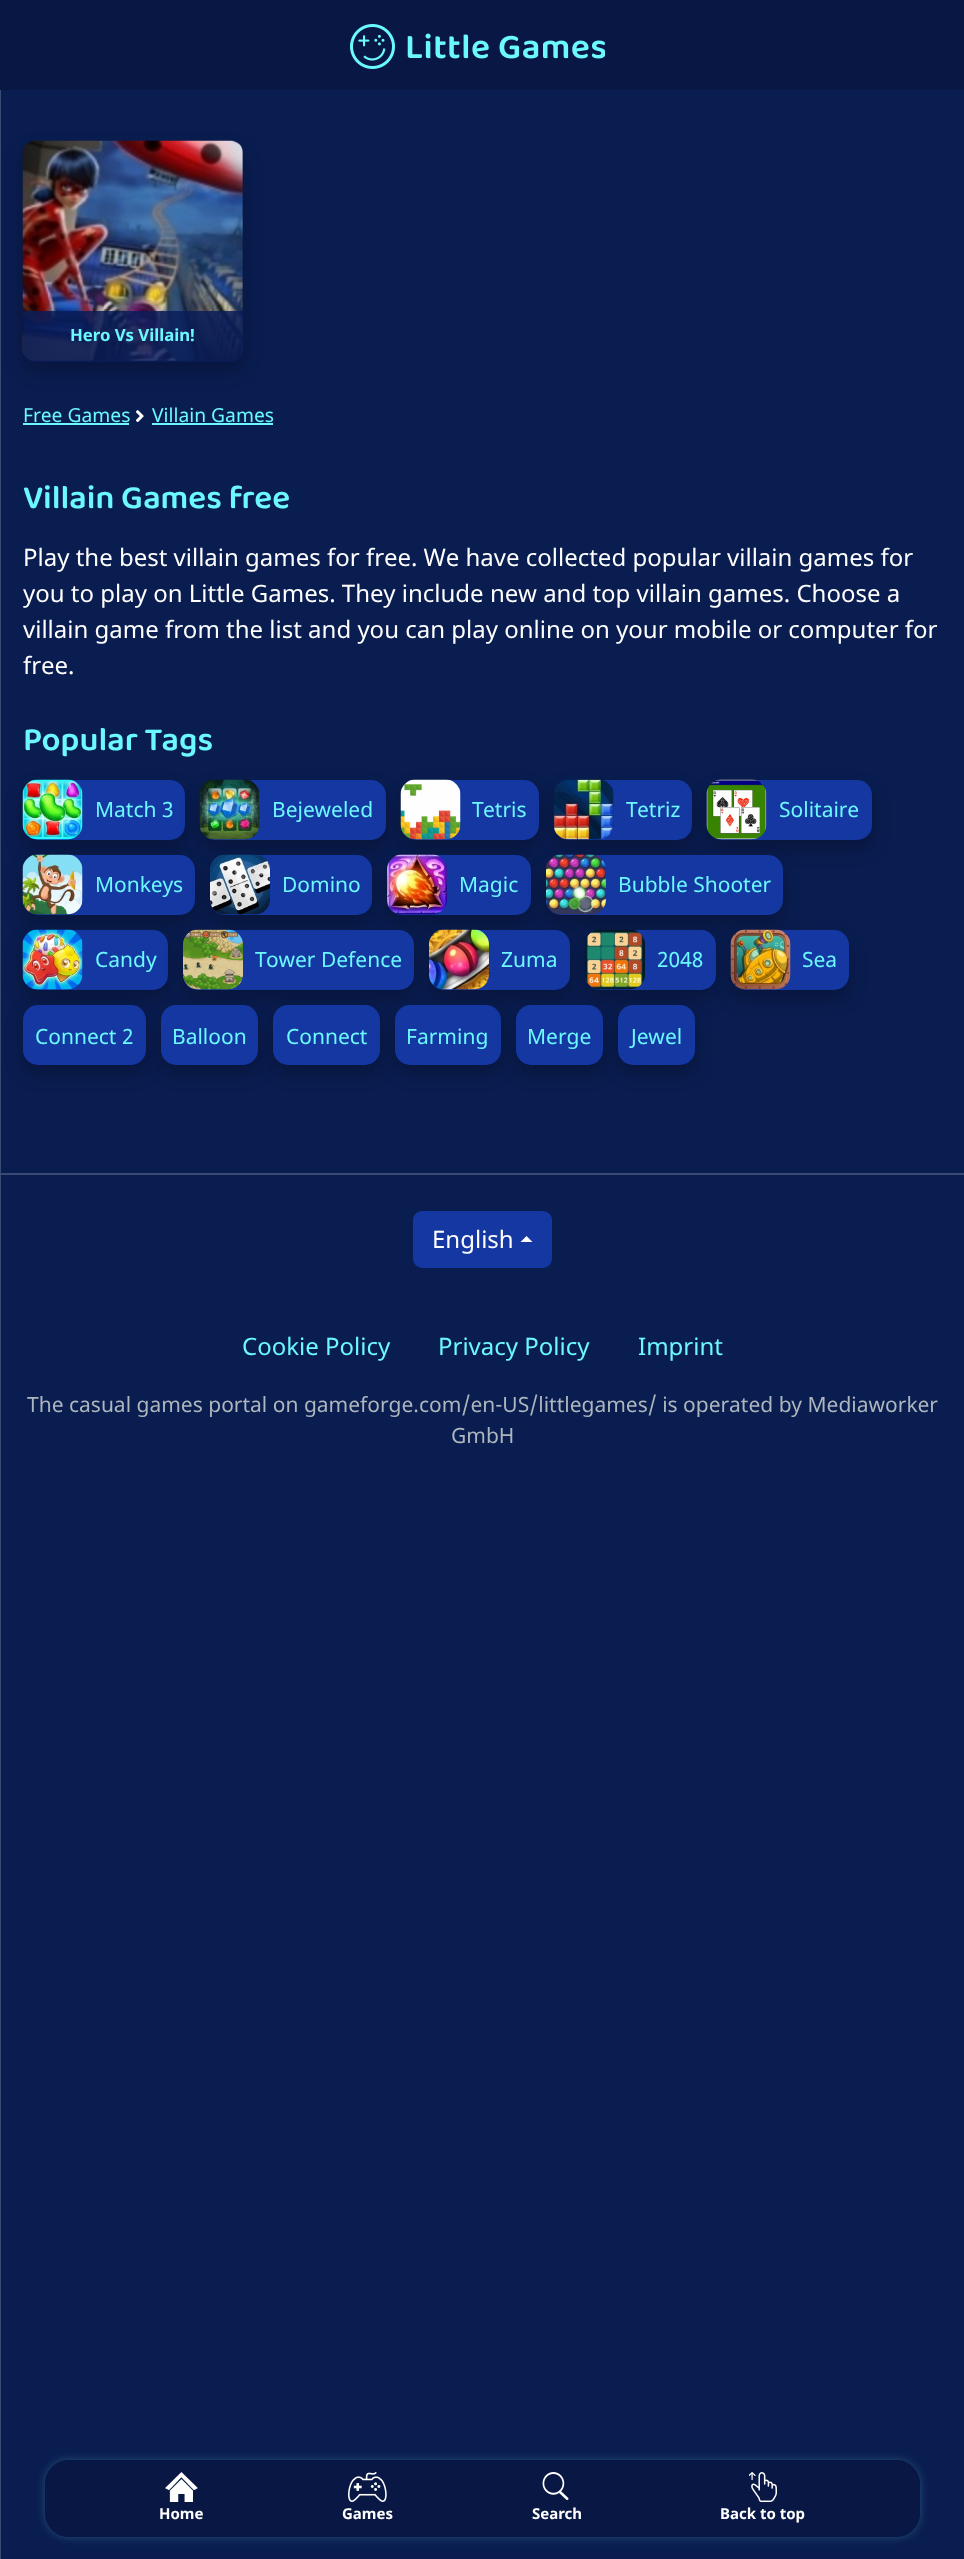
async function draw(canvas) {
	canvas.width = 964;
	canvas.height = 2559;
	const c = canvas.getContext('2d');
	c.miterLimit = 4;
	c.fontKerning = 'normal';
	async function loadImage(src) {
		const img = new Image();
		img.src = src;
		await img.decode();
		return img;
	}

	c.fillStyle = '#0a1d50';
	c.fillRect(0, 0, 964, 2559);
	c.fillStyle = '#081740cc';
	c.fillRect(0, 0, 964, 90);
	c.drawImage(await loadImage('img1.png'), 350, 24, 255, 45);
	c.fillStyle = '#0000003d';
	c.filter = 'blur(9px)';
	c.beginPath();
	c.roundRect(23, 150, 220, 221, 12);
	c.fill();
	c.filter = 'none';
	c.filter = 'blur(9px)';
	c.beginPath();
	c.roundRect(23, 789, 162, 60, 15);
	c.fill();
	c.filter = 'none';
	c.fillStyle = '#1437a1';
	c.beginPath();
	c.roundRect(23, 780, 162, 60, 15);
	c.fill();
	c.drawImage(await loadImage('img4.png'), 22, 779, 61, 61);
	c.fillStyle = '#0000003d';
	c.filter = 'blur(9px)';
	c.beginPath();
	c.roundRect(200, 789, 186, 60, 15);
	c.fill();
	c.filter = 'none';
	c.fillStyle = '#1437a1';
	c.beginPath();
	c.roundRect(200, 780, 186, 60, 15);
	c.fill();
	c.drawImage(await loadImage('img5.png'), 199, 779, 61, 61);
	c.fillStyle = '#0000003d';
	c.filter = 'blur(9px)';
	c.beginPath();
	c.roundRect(23, 864, 172, 60, 15);
	c.fill();
	c.filter = 'none';
	c.fillStyle = '#1437a1';
	c.beginPath();
	c.roundRect(23, 855, 172, 60, 15);
	c.fill();
	c.drawImage(await loadImage('img9.png'), 22, 854, 61, 61);
	c.fillStyle = '#0000003d';
	c.filter = 'blur(9px)';
	c.beginPath();
	c.roundRect(23, 939, 145, 60, 15);
	c.fill();
	c.filter = 'none';
	c.fillStyle = '#1437a1';
	c.beginPath();
	c.roundRect(23, 930, 145, 60, 15);
	c.fill();
	c.drawImage(await loadImage('img13.png'), 22, 929, 61, 61);
	c.fillStyle = '#0000003d';
	c.filter = 'blur(9px)';
	c.beginPath();
	c.roundRect(23, 1014, 123, 60, 15);
	c.fill();
	c.filter = 'none';
	c.fillStyle = '#3b4a73';
	c.fillRect(0, 1173, 964, 2);
	c.fillRect(0, 90, 1, 2469);
	c.drawImage(await loadImage('img2.png'), 22, 140, 221, 221);
	c.fillStyle = '#091d59d9';
	c.beginPath();
	c.roundRect(23, 311, 220, 51, [0, 0, 12, 12]);
	c.fill();
	c.font = 'bold 16.75px Noto Sans';
	c.fillStyle = '#6bf8ff';
	c.fillText('Hero Vs Villain!', 70, 341);
	c.font = '19.25px Noto Sans';
	c.fillText('Free Games', 23, 422);
	c.fillRect(23, 423, 106, 2);
	c.drawImage(await loadImage('img3.png'), 136, 410, 8, 12);
	c.fillText('Villain Games', 152, 422);
	c.fillRect(152, 423, 121, 2);
	c.font = '600 33.5px "Baloo Bhaina 2"';
	c.fillText('Villain Games free', 23, 508);
	c.font = '24px Noto Sans';
	c.fillStyle = '#fff';
	for (const [text, x, y] of [
		['Play the best villain games for free. We have collected popular villain games for', 23, 566],
		['you to play on Little Games. They include new and top villain games. Choose a', 23, 602],
		['villain game from the list and you can play online on your mobile or computer for', 23, 638],
		['free.', 23, 674],
	]) {
		c.fillText(text, x, y);
	}
	c.font = '600 33.5px "Baloo Bhaina 2"';
	c.fillStyle = '#6bf8ff';
	c.fillText('Popular Tags', 23, 750);
	c.font = '21px Noto Sans';
	c.fillText('Match 3', 95, 817);
	c.fillText('Bejeweled', 272, 817);
	c.fillStyle = '#0000003d';
	c.filter = 'blur(9px)';
	c.beginPath();
	c.roundRect(401, 789, 138, 60, 15);
	c.fill();
	c.filter = 'none';
	c.fillStyle = '#1437a1';
	c.beginPath();
	c.roundRect(401, 780, 138, 60, 15);
	c.fill();
	c.drawImage(await loadImage('img6.png'), 400, 779, 61, 61);
	c.fillStyle = '#6bf8ff';
	c.fillText('Tetris', 472, 817);
	c.fillStyle = '#0000003d';
	c.filter = 'blur(9px)';
	c.beginPath();
	c.roundRect(554, 789, 138, 60, 15);
	c.fill();
	c.filter = 'none';
	c.fillStyle = '#1437a1';
	c.beginPath();
	c.roundRect(554, 780, 138, 60, 15);
	c.fill();
	c.drawImage(await loadImage('img7.png'), 553, 779, 61, 61);
	c.fillStyle = '#6bf8ff';
	c.fillText('Tetriz', 626, 817);
	c.fillStyle = '#0000003d';
	c.filter = 'blur(9px)';
	c.beginPath();
	c.roundRect(707, 789, 165, 60, 15);
	c.fill();
	c.filter = 'none';
	c.fillStyle = '#1437a1';
	c.beginPath();
	c.roundRect(707, 780, 165, 60, 15);
	c.fill();
	c.drawImage(await loadImage('img8.png'), 706, 779, 61, 61);
	c.fillStyle = '#6bf8ff';
	c.fillText('Solitaire', 779, 817);
	c.fillText('Monkeys', 95, 892);
	c.fillStyle = '#0000003d';
	c.filter = 'blur(9px)';
	c.beginPath();
	c.roundRect(210, 864, 162, 60, 15);
	c.fill();
	c.filter = 'none';
	c.fillStyle = '#1437a1';
	c.beginPath();
	c.roundRect(210, 855, 162, 60, 15);
	c.fill();
	c.drawImage(await loadImage('img10.png'), 210, 854, 60, 61);
	c.fillStyle = '#6bf8ff';
	c.fillText('Domino', 282, 892);
	c.fillStyle = '#0000003d';
	c.filter = 'blur(9px)';
	c.beginPath();
	c.roundRect(387, 864, 144, 60, 15);
	c.fill();
	c.filter = 'none';
	c.fillStyle = '#1437a1';
	c.beginPath();
	c.roundRect(387, 855, 144, 60, 15);
	c.fill();
	c.drawImage(await loadImage('img11.png'), 387, 854, 60, 61);
	c.fillStyle = '#6bf8ff';
	c.fillText('Magic', 459, 892);
	c.fillStyle = '#0000003d';
	c.filter = 'blur(9px)';
	c.beginPath();
	c.roundRect(546, 864, 237, 60, 15);
	c.fill();
	c.filter = 'none';
	c.fillStyle = '#1437a1';
	c.beginPath();
	c.roundRect(546, 855, 237, 60, 15);
	c.fill();
	c.drawImage(await loadImage('img12.png'), 546, 854, 60, 61);
	c.fillStyle = '#6bf8ff';
	c.fillText('Bubble Shooter', 618, 892);
	c.fillText('Candy', 95, 967);
	c.fillStyle = '#0000003d';
	c.filter = 'blur(9px)';
	c.beginPath();
	c.roundRect(183, 939, 231, 60, 15);
	c.fill();
	c.filter = 'none';
	c.fillStyle = '#1437a1';
	c.beginPath();
	c.roundRect(183, 930, 231, 60, 15);
	c.fill();
	c.drawImage(await loadImage('img14.png'), 183, 929, 60, 61);
	c.fillStyle = '#6bf8ff';
	c.fillText('Tower Defence', 255, 967);
	c.fillStyle = '#0000003d';
	c.filter = 'blur(9px)';
	c.beginPath();
	c.roundRect(429, 939, 141, 60, 15);
	c.fill();
	c.filter = 'none';
	c.fillStyle = '#1437a1';
	c.beginPath();
	c.roundRect(429, 930, 141, 60, 15);
	c.fill();
	c.drawImage(await loadImage('img15.png'), 429, 929, 60, 61);
	c.fillStyle = '#6bf8ff';
	c.fillText('Zuma', 501, 967);
	c.fillStyle = '#0000003d';
	c.filter = 'blur(9px)';
	c.beginPath();
	c.roundRect(585, 939, 131, 60, 15);
	c.fill();
	c.filter = 'none';
	c.fillStyle = '#1437a1';
	c.beginPath();
	c.roundRect(585, 930, 131, 60, 15);
	c.fill();
	c.drawImage(await loadImage('img16.png'), 585, 929, 60, 61);
	c.fillStyle = '#6bf8ff';
	c.fillText('2048', 657, 967);
	c.fillStyle = '#0000003d';
	c.filter = 'blur(9px)';
	c.beginPath();
	c.roundRect(731, 939, 118, 60, 15);
	c.fill();
	c.filter = 'none';
	c.fillStyle = '#1437a1';
	c.beginPath();
	c.roundRect(731, 930, 118, 60, 15);
	c.fill();
	c.drawImage(await loadImage('img17.png'), 730, 929, 61, 61);
	c.fillStyle = '#6bf8ff';
	c.fillText('Sea', 802, 967);
	c.fillStyle = '#1437a1';
	c.beginPath();
	c.roundRect(23, 1005, 123, 60, 15);
	c.fill();
	c.fillStyle = '#6bf8ff';
	c.fillText('Connect 2', 35, 1044);
	c.fillStyle = '#0000003d';
	c.filter = 'blur(9px)';
	c.beginPath();
	c.roundRect(161, 1014, 97, 60, 15);
	c.fill();
	c.filter = 'none';
	c.fillStyle = '#1437a1';
	c.beginPath();
	c.roundRect(161, 1005, 97, 60, 15);
	c.fill();
	c.fillStyle = '#6bf8ff';
	c.fillText('Balloon', 172, 1044);
	c.fillStyle = '#0000003d';
	c.filter = 'blur(9px)';
	c.beginPath();
	c.roundRect(273, 1014, 107, 60, 15);
	c.fill();
	c.filter = 'none';
	c.fillStyle = '#1437a1';
	c.beginPath();
	c.roundRect(273, 1005, 107, 60, 15);
	c.fill();
	c.fillStyle = '#6bf8ff';
	c.fillText('Connect', 286, 1044);
	c.fillStyle = '#0000003d';
	c.filter = 'blur(9px)';
	c.beginPath();
	c.roundRect(395, 1014, 106, 60, 15);
	c.fill();
	c.filter = 'none';
	c.fillStyle = '#1437a1';
	c.beginPath();
	c.roundRect(395, 1005, 106, 60, 15);
	c.fill();
	c.fillStyle = '#6bf8ff';
	c.fillText('Farming', 406, 1044);
	c.fillStyle = '#0000003d';
	c.filter = 'blur(9px)';
	c.beginPath();
	c.roundRect(516, 1014, 87, 60, 15);
	c.fill();
	c.filter = 'none';
	c.fillStyle = '#1437a1';
	c.beginPath();
	c.roundRect(516, 1005, 87, 60, 15);
	c.fill();
	c.fillStyle = '#6bf8ff';
	c.fillText('Merge', 527, 1044);
	c.fillStyle = '#0000003d';
	c.filter = 'blur(9px)';
	c.beginPath();
	c.roundRect(618, 1014, 77, 60, 15);
	c.fill();
	c.filter = 'none';
	c.fillStyle = '#1437a1';
	c.beginPath();
	c.roundRect(618, 1005, 77, 60, 15);
	c.fill();
	c.fillStyle = '#6bf8ff';
	c.fillText('Jewel', 631, 1044);
	c.fillStyle = '#1437a1';
	c.beginPath();
	c.roundRect(414, 1212, 137, 55, 8);
	c.fill();
	c.strokeStyle = '#1437a1';
	c.lineWidth = 2;
	c.stroke();
	c.font = '24px Noto Sans';
	c.fillStyle = '#fff';
	c.fillText('English', 432, 1248);
	c.beginPath();
	c.moveTo(532.5, 1242);
	c.lineTo(520.5, 1242);
	c.lineTo(526.5, 1236);
	c.closePath();
	c.fill();
	c.fillStyle = '#6bf8ff';
	for (const [text, x, y] of [
		['Cookie Policy', 242, 1355],
		['Privacy Policy', 438, 1355],
		['Imprint', 638, 1355],
	]) {
		c.fillText(text, x, y);
	}
	c.font = '21px Noto Sans';
	c.fillStyle = '#adb5bd';
	c.fillText('The casual games portal on gameforge.com/en-US/littlegames/ is operated by Mediaworker', 27, 1412);
	c.fillText('GmbH', 451, 1443);
	c.save();
	c.beginPath();
	c.moveTo(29, 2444);
	c.lineTo(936, 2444);
	c.lineTo(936, 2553);
	c.lineTo(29, 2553);
	c.closePath();
	c.moveTo(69, 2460);
	c.lineTo(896, 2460);
	c.bezierCurveTo(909.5, 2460, 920, 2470.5, 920, 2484);
	c.lineTo(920, 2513);
	c.bezierCurveTo(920, 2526.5, 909.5, 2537, 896, 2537);
	c.lineTo(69, 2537);
	c.bezierCurveTo(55.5, 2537, 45, 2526.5, 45, 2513);
	c.lineTo(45, 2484);
	c.bezierCurveTo(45, 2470.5, 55.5, 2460, 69, 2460);
	c.closePath();
	c.clip('evenodd');
	c.fillStyle = '#6bf8f63d';
	c.filter = 'blur(5px)';
	c.beginPath();
	c.roundRect(45, 2460, 875, 77, 24);
	c.fill();
	c.filter = 'none';
	c.restore();
	c.fillStyle = '#081740cc';
	c.beginPath();
	c.roundRect(45, 2460, 875, 77, 24);
	c.fill();
	c.drawImage(await loadImage('img18.png'), 165, 2472, 33, 30);
	c.font = 'bold 15px Noto Sans';
	c.fillStyle = '#fff';
	c.fillText('Home', 159, 2519);
	c.drawImage(await loadImage('img19.png'), 348, 2472, 39, 30);
	c.fillText('Games', 342, 2519);
	c.drawImage(await loadImage('img20.png'), 542, 2472, 27, 28);
	c.fillText('Search', 532, 2519);
	c.drawImage(await loadImage('img21.png'), 749, 2472, 28, 30);
	c.fillText('Back to top', 720, 2519);
}

draw(document.querySelector('canvas'));
